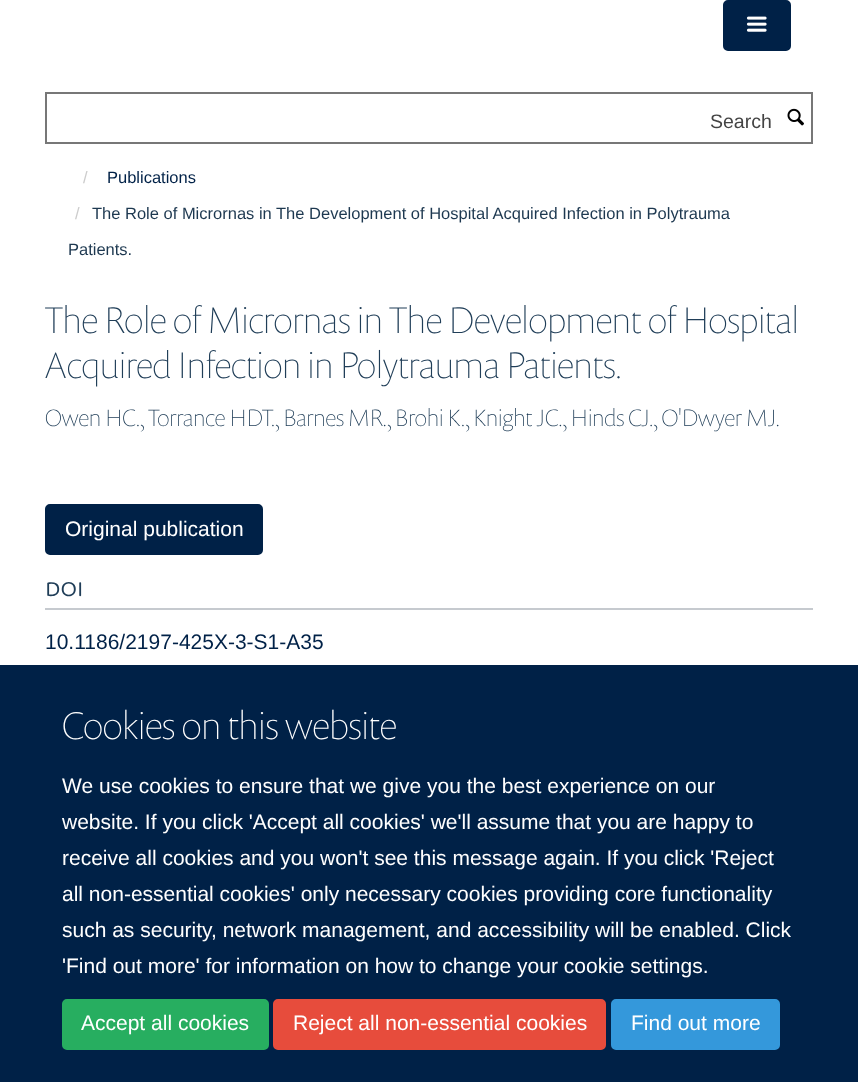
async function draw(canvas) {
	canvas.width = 858;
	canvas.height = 1082;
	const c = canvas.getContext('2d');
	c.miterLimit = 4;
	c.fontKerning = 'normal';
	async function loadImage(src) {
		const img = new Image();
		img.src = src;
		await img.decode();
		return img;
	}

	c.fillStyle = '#fff';
	c.fillRect(0, 0, 858, 1082);
	c.fillStyle = '#002147';
	c.beginPath();
	c.roundRect(724, 1, 66, 49, 4);
	c.fill();
	c.strokeStyle = '#002147';
	c.lineWidth = 2;
	c.stroke();
	c.drawImage(await loadImage('img1.png'), 746, 16, 21, 16);
	c.strokeStyle = '#777';
	c.strokeRect(46, 93, 766, 50);
	c.font = '19.5px Liberation Sans';
	c.fillStyle = '#444';
	c.fillText('Search', 710, 128);
	c.drawImage(await loadImage('img2.png'), 787, 108, 17, 18);
	c.font = '16.5px Liberation Sans';
	c.fillStyle = '#ccc';
	c.fillText('/', 83, 183);
	c.fillStyle = '#002147';
	c.fillText('Publications', 107, 183);
	c.fillStyle = '#ccc';
	c.fillText('/', 75, 219);
	c.fillStyle = '#1d3850';
	c.fillText('The Role of Micrornas in The Development of Hospital Acquired Infection in Polytrauma', 92, 219);
	c.fillText('Patients.', 68, 255);
	c.font = '100 37.5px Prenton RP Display';
	c.fillStyle = '#203e58';
	c.fillText('The Role of Micrornas in The Development of Hospital', 45, 333);
	c.fillText('Acquired Infection in Polytrauma Patients.', 45, 378);
	c.font = '100 24px Prenton RP Display';
	c.fillText('Owen HC., Torrance HDT., Barnes MR., Brohi K., Knight JC., Hinds CJ., O\'Dwyer MJ.', 45, 426);
	c.fillStyle = '#002147';
	c.beginPath();
	c.roundRect(46, 505, 216, 49, 4);
	c.fill();
	c.strokeStyle = '#002147';
	c.stroke();
	c.font = '21px Liberation Sans';
	c.fillStyle = '#fff';
	c.fillText('Original publication', 65, 536);
	c.fillStyle = '#c6cacf';
	c.fillRect(45, 608, 768, 2);
	c.font = '21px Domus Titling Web';
	c.fillStyle = '#203e58';
	c.fillText('DOI', 45, 596);
	c.font = '21px Liberation Sans';
	c.fillStyle = '#002147';
	c.fillText('10.1186/2197-425X-3-S1-A35', 45, 649);
	c.fillRect(0, 665, 858, 417);
	c.font = '100 39px Prenton RP Display';
	c.fillStyle = '#fff';
	c.fillText('Cookies on this website', 62, 739);
	c.font = '21px Liberation Sans';
	for (const [text, x, y] of [
		['We use cookies to ensure that we give you the best experience on our', 62, 793],
		['website. If you click \'Accept all cookies\' we\'ll assume that you are happy to', 62, 829],
		['receive all cookies and you won\'t see this message again. If you click \'Reject', 62, 865],
		['all non-essential cookies\' only necessary cookies providing core functionality', 62, 901],
		['such as security, network management, and accessibility will be enabled. Click', 62, 937],
		['\'Find out more\' for information on how to change your cookie settings.', 62, 973],
	]) {
		c.fillText(text, x, y);
	}
	c.fillStyle = '#27ae60';
	c.beginPath();
	c.roundRect(63, 1000, 205, 49, 4);
	c.fill();
	c.strokeStyle = '#27ae60';
	c.stroke();
	c.fillStyle = '#fff';
	c.fillText('Accept all cookies', 81, 1030);
	c.fillStyle = '#e74c3c';
	c.beginPath();
	c.roundRect(274, 1000, 331, 49, 4);
	c.fill();
	c.strokeStyle = '#e74c3c';
	c.stroke();
	c.fillStyle = '#fff';
	c.fillText('Reject all non-essential cookies', 293, 1030);
	c.fillStyle = '#3498db';
	c.beginPath();
	c.roundRect(612, 1000, 167, 49, 4);
	c.fill();
	c.strokeStyle = '#3498db';
	c.stroke();
	c.fillStyle = '#fff';
	c.fillText('Find out more', 631, 1030);
}

draw(document.querySelector('canvas'));
